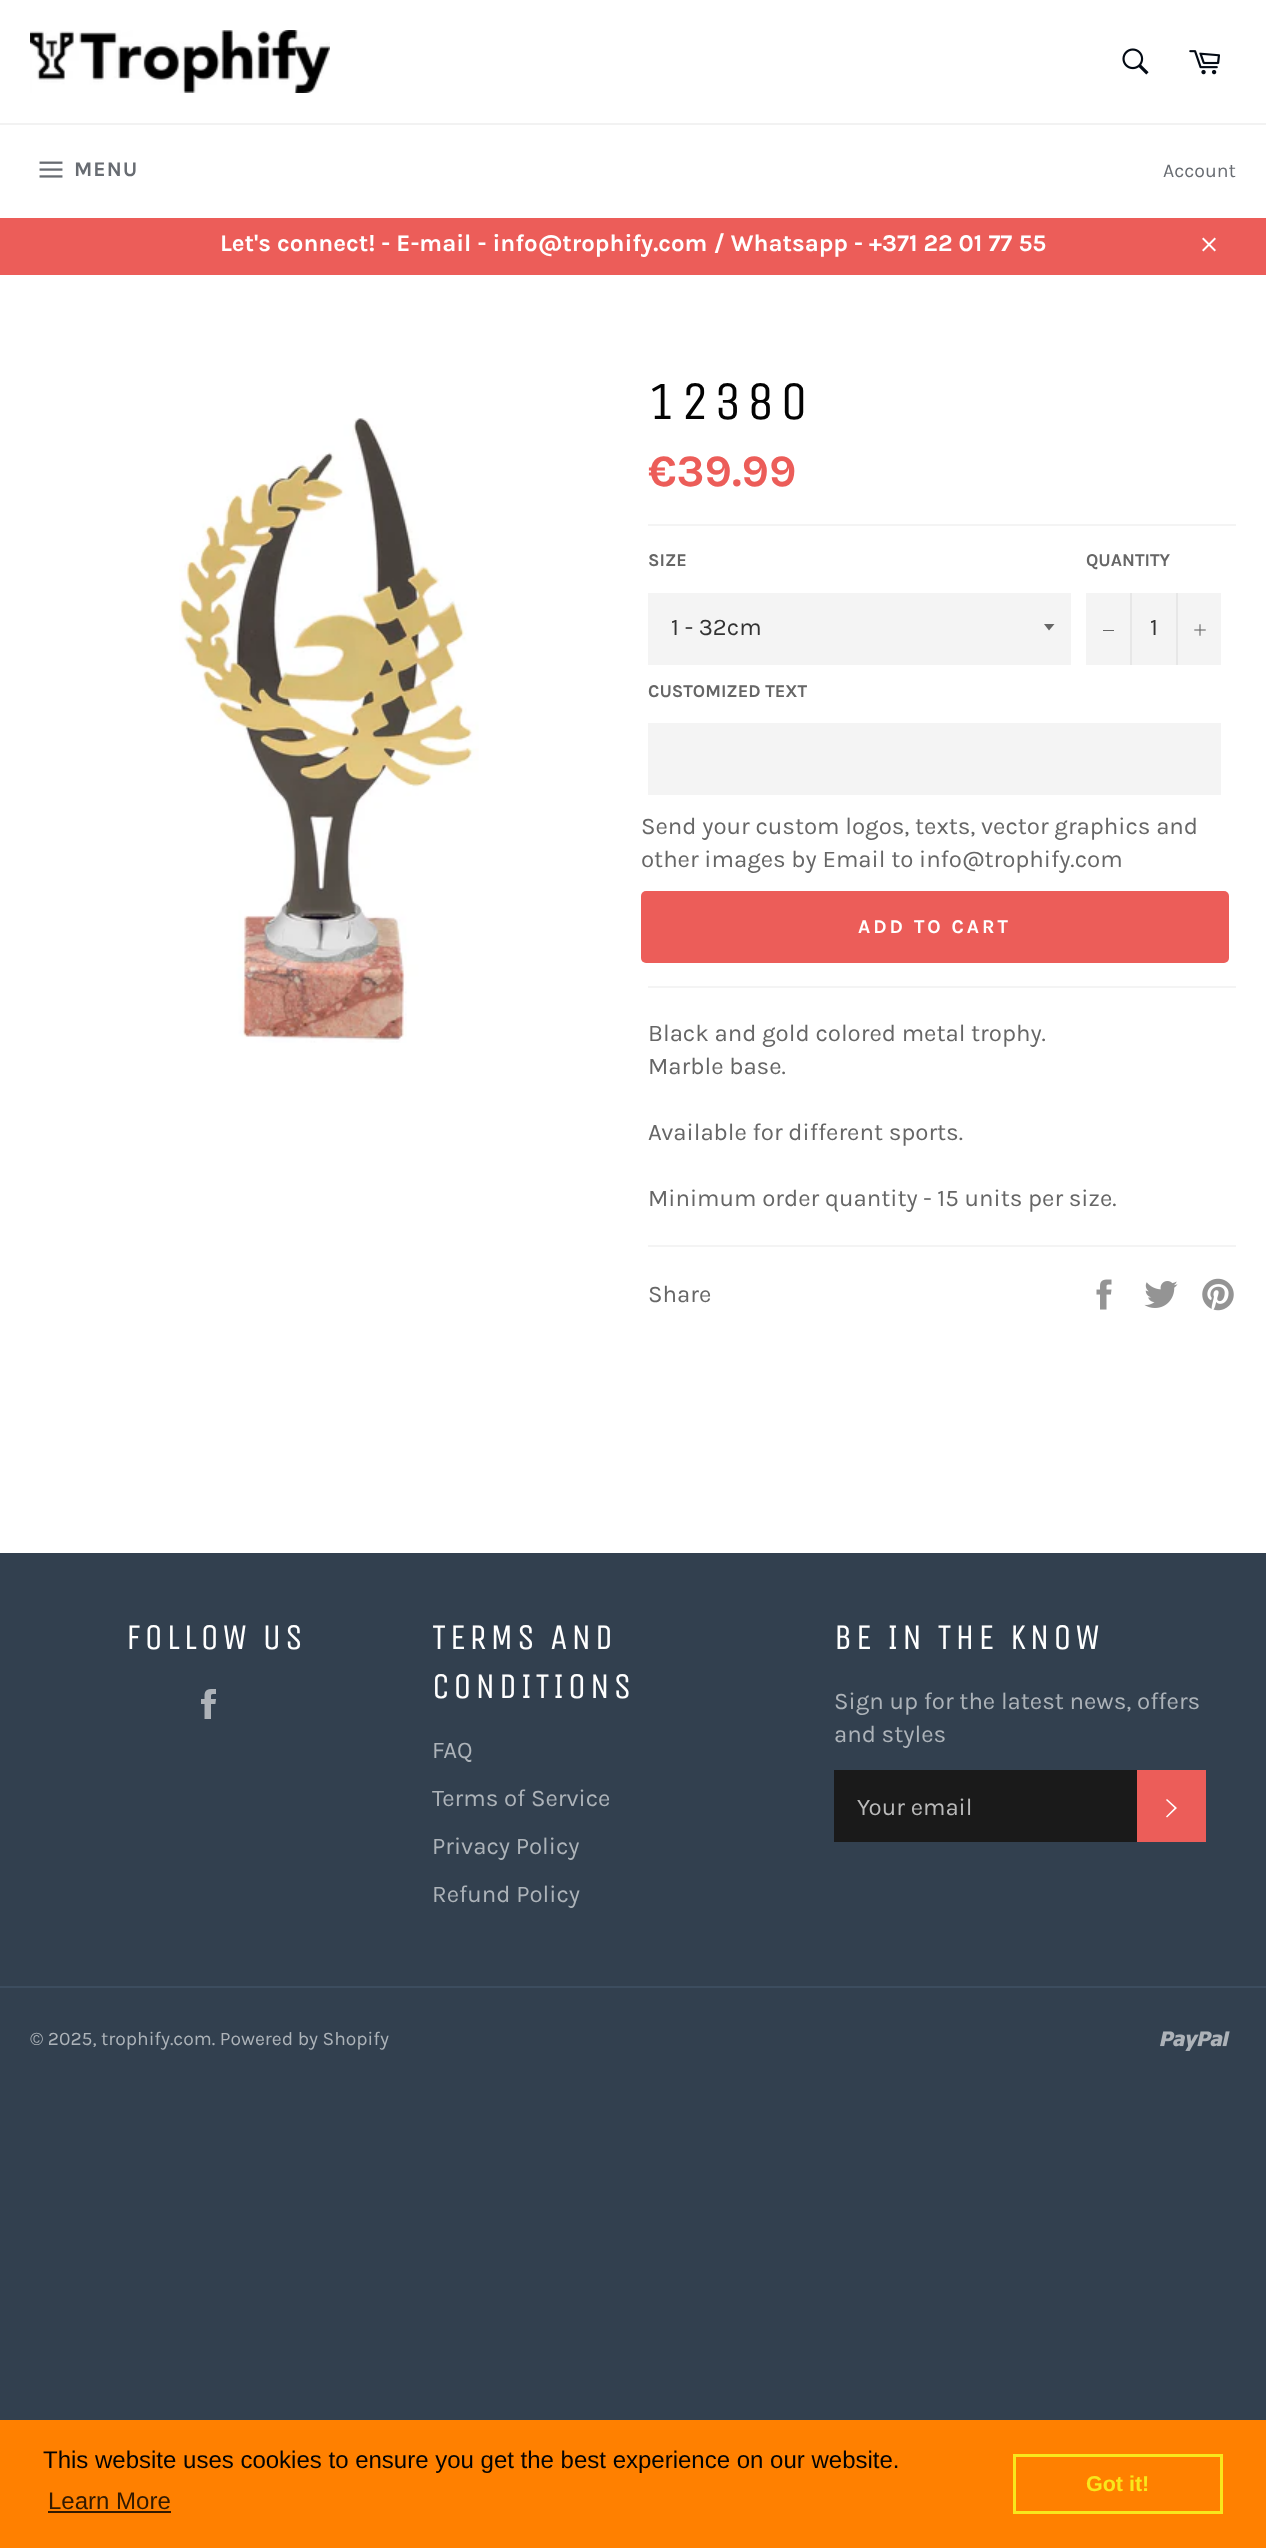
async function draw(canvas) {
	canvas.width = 1266;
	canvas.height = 2548;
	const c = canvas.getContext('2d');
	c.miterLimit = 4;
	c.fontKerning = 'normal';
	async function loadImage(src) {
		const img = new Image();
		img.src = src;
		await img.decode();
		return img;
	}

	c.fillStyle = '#32404f';
	c.fillRect(0, 0, 1266, 2548);
	c.fillStyle = '#fff';
	c.fillRect(0, 0, 1266, 123);
	c.drawImage(await loadImage('img1.png'), 30, 30, 300, 63);
	c.drawImage(await loadImage('img2.png'), 1122, 48, 27, 27);
	c.drawImage(await loadImage('img3.png'), 1189, 50, 31, 25);
	c.fillRect(0, 125, 1266, 93);
	c.fillStyle = '#f2f2f2';
	c.fillRect(0, 123, 1266, 2);
	c.drawImage(await loadImage('img4.png'), 39, 161, 24, 17);
	c.letterSpacing = '1px';
	c.font = 'bold 21px Karla';
	c.fillStyle = '#686c72';
	c.fillText('MENU', 74, 176);
	c.letterSpacing = '0px';
	c.font = '19.5px Karla';
	c.fillText('Account', 1163, 177);
	c.fillStyle = '#ec5d59';
	c.fillRect(0, 218, 1266, 57);
	c.font = 'bold 24px Karla';
	c.fillStyle = '#fff';
	c.fillText('Let\'s connect! - E-mail - info@trophify.com / Whatsapp - +371 22 01 77 55', 220, 251);
	c.drawImage(await loadImage('img5.png'), 1202, 237, 14, 15);
	c.fillRect(0, 275, 1266, 1278);
	c.drawImage(await loadImage('img6.png'), 179, 418, 300, 625);
	c.letterSpacing = '5.5px';
	c.font = '54px Unica One';
	c.fillStyle = '#030303';
	c.fillText('12380', 648, 419);
	c.letterSpacing = '0px';
	c.font = 'bold 45px Karla';
	c.fillStyle = '#ec5d59';
	c.fillText('€39.99', 648, 486);
	c.fillStyle = '#f4f4f4';
	c.fillRect(648, 524, 588, 2);
	c.font = 'bold 18px Karla';
	c.fillStyle = '#666';
	c.fillText('SIZE', 648, 566);
	c.fillStyle = '#f4f4f4';
	c.fillRect(648, 593, 423, 72);
	c.fillStyle = '#666';
	c.beginPath();
	c.moveTo(1044, 624);
	c.lineTo(1049, 630.5);
	c.lineTo(1054.5, 624);
	c.closePath();
	c.fill();
	c.font = '24px Karla';
	c.fillStyle = '#333';
	c.fillText('1 - 32cm', 671, 635);
	c.font = 'bold 18px Karla';
	c.fillStyle = '#666';
	c.fillText('QUANTITY', 1086, 566);
	for (const [x, y, w, h, color] of [
		[1086, 593, 135, 72, '#f4f4f4'],
		[1130, 593, 2, 72, '#e7e7e7'],
		[1103, 630, 11, 1, '#666'],
	]) {
		c.fillStyle = color;
		c.fillRect(x, y, w, h);
	}
	c.font = '24px Karla';
	c.fillStyle = '#333';
	c.fillText('1', 1150, 635);
	c.fillStyle = '#e7e7e7';
	c.fillRect(1176, 593, 2, 72);
	c.drawImage(await loadImage('img7.png'), 1194, 624, 12, 12);
	c.font = 'bold 18px Karla';
	c.fillStyle = '#666';
	c.fillText('CUSTOMIZED TEXT', 648, 697);
	c.fillStyle = '#f4f4f4';
	c.fillRect(648, 723, 573, 72);
	c.font = '24px Karla';
	c.fillStyle = '#666';
	c.fillText('Send your custom logos, texts, vector graphics and', 641, 834);
	c.fillText('other images by Email to info@trophify.com', 641, 867);
	c.fillStyle = '#ec5d59';
	c.beginPath();
	c.roundRect(641, 891, 588, 72, 5);
	c.fill();
	c.letterSpacing = '3px';
	c.font = 'bold 19.5px Karla';
	c.fillStyle = '#fff';
	c.fillText('ADD TO CART', 858, 933);
	c.fillStyle = '#f4f4f4';
	c.fillRect(648, 986, 588, 2);
	c.letterSpacing = '0px';
	c.font = '24px Karla';
	c.fillStyle = '#666';
	for (const [text, x, y] of [
		['Black and gold colored metal trophy.', 648, 1041],
		['Marble base.', 648, 1074],
		['Available for different sports.', 648, 1140],
		['Minimum order quantity - 15 units per size.', 648, 1206],
	]) {
		c.fillText(text, x, y);
	}
	c.fillStyle = '#f4f4f4';
	c.fillRect(648, 1245, 588, 2);
	c.fillStyle = '#666';
	c.fillText('Share', 648, 1302);
	c.drawImage(await loadImage('img8.png'), 1096, 1279, 16, 31);
	c.drawImage(await loadImage('img9.png'), 1144, 1281, 34, 27);
	c.drawImage(await loadImage('img10.png'), 1202, 1278, 32, 33);
	c.letterSpacing = '3.6px';
	c.font = '36px Unica One';
	c.fillStyle = '#fff';
	c.fillText('FOLLOW US', 126, 1649);
	c.drawImage(await loadImage('img11.png'), 201, 1689, 15, 30);
	c.fillText('TERMS AND', 432, 1649);
	c.fillText('CONDITIONS', 432, 1698);
	c.letterSpacing = '0px';
	c.font = '24px Karla';
	c.fillStyle = '#adb3b9';
	for (const [text, x, y] of [
		['FAQ', 432, 1758],
		['Terms of Service', 432, 1806],
		['Privacy Policy', 432, 1854],
		['Refund Policy', 432, 1902],
	]) {
		c.fillText(text, x, y);
	}
	c.letterSpacing = '3.6px';
	c.font = '36px Unica One';
	c.fillStyle = '#fff';
	c.fillText('BE IN THE KNOW', 834, 1649);
	c.letterSpacing = '0px';
	c.font = '24px Karla';
	c.fillStyle = '#adb3b9';
	c.fillText('Sign up for the latest news, offers', 834, 1709);
	c.fillText('and styles', 834, 1742);
	c.fillStyle = '#1a1a1a';
	c.fillRect(834, 1770, 303, 72);
	c.fillStyle = '#bababa';
	c.fillText('Your email', 857, 1815);
	c.fillStyle = '#ec5d59';
	c.fillRect(1137, 1770, 69, 72);
	c.fillStyle = '#fff';
	c.beginPath();
	c.moveTo(1166, 1800);
	c.lineTo(1167, 1799);
	c.lineTo(1177, 1808);
	c.lineTo(1167, 1817.5);
	c.lineTo(1166, 1816.5);
	c.lineTo(1174.5, 1808);
	c.closePath();
	c.fill();
	c.fillStyle = '#3c4d5f';
	c.fillRect(0, 1986, 1266, 2);
	c.font = '19.25px Karla';
	c.fillStyle = '#adb3b9';
	c.fillText('© 2025, trophify.com. Powered by Shopify', 30, 2045);
	c.drawImage(await loadImage('img12.png'), 1160, 2031, 70, 20);
	c.fillStyle = '#ff8000';
	c.fillRect(0, 2420, 1266, 128);
	c.font = '24px Liberation Sans';
	c.fillStyle = '#030303';
	c.fillText('This website uses cookies to ensure you get the best experience on our website.', 43, 2468);
	c.fillStyle = '#331a00';
	c.fillText('Learn More', 48, 2509);
	c.fillRect(48, 2511, 123, 2);
	c.strokeStyle = '#f8e71c';
	c.lineWidth = 3;
	c.strokeRect(1014.5, 2455.5, 207, 57);
	c.font = 'bold 21.5px Liberation Sans';
	c.fillStyle = '#f8e71c';
	c.fillText('Got it!', 1086, 2491);
}

draw(document.querySelector('canvas'));
